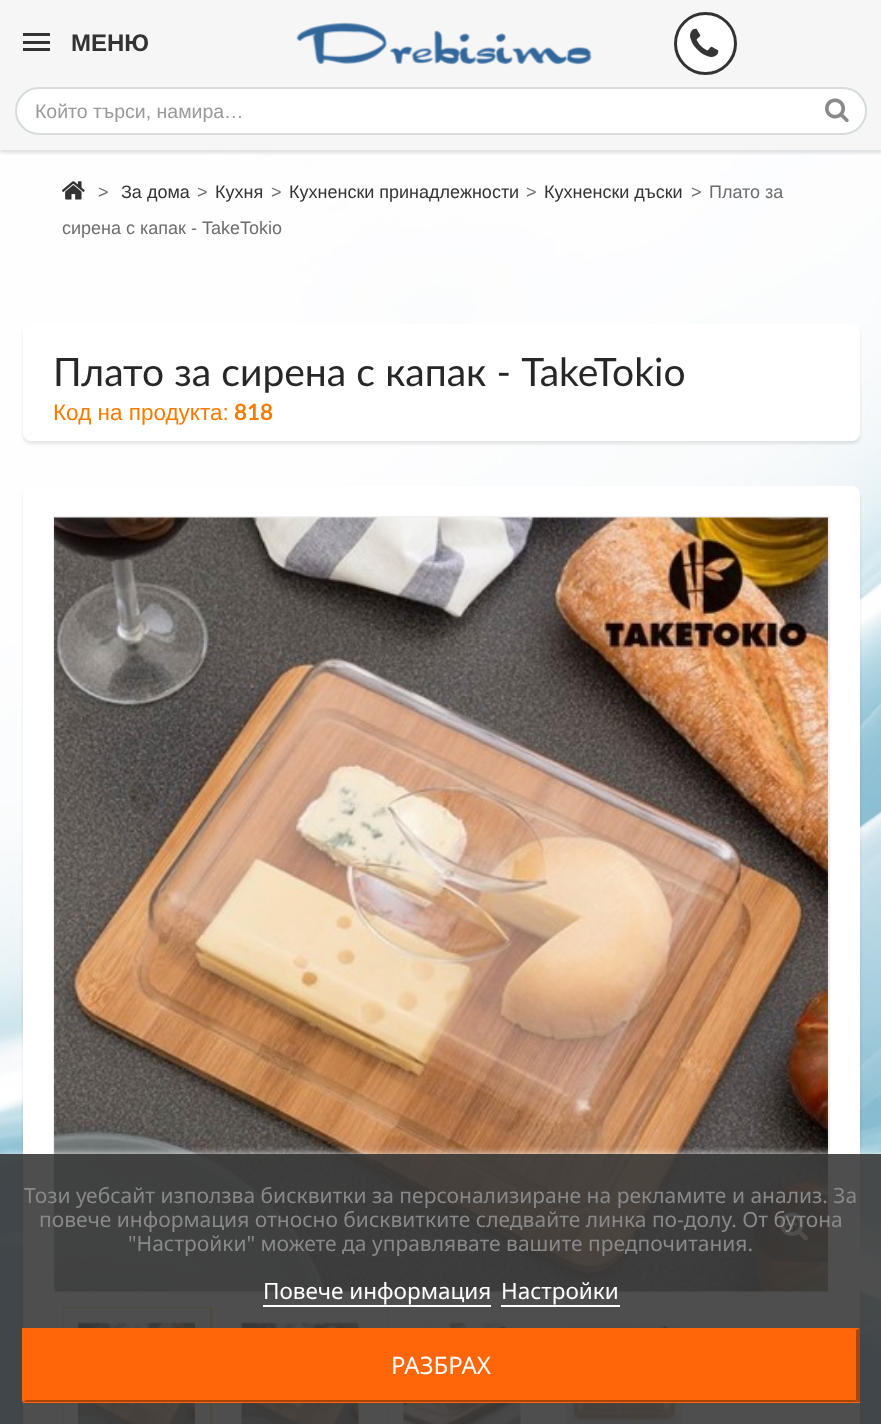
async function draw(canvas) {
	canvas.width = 881;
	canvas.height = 1424;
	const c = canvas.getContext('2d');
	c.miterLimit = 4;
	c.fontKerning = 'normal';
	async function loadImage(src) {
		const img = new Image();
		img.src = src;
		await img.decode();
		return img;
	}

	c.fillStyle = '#fff';
	c.fillRect(0, 0, 881, 1424);
	c.drawImage(await loadImage('img1.png'), 0, 150, 881, 1274);
	c.fillStyle = '#0b191c1f';
	c.filter = 'blur(1.5px)';
	c.beginPath();
	c.rect(0, 3, 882, 150);
	c.fill();
	c.filter = 'none';
	for (const [x, y, w, h, color] of [
		[0, 0, 881, 150, '#f6f6f6'],
		[23, 33, 27, 3, '#333'],
		[23, 41, 27, 3, '#333'],
		[23, 48, 27, 3, '#333'],
	]) {
		c.fillStyle = color;
		c.fillRect(x, y, w, h);
	}
	c.font = 'bold 24px Liberation Sans';
	c.fillText('МЕНЮ', 71, 51);
	c.drawImage(await loadImage('img2.png'), 296, 22, 296, 43);
	c.fillStyle = '#fff';
	c.beginPath();
	c.arc(705.5, 43.5, 30, 0, 2 * Math.PI);
	c.fill();
	c.strokeStyle = '#333';
	c.lineWidth = 3;
	c.stroke();
	c.drawImage(await loadImage('img3.png'), 690, 28, 29, 29);
	c.beginPath();
	c.roundRect(16, 88, 850, 46, 23);
	c.fill();
	c.strokeStyle = '#d7dbdb';
	c.lineWidth = 2;
	c.stroke();
	c.font = '19.5px Liberation Sans';
	c.fillStyle = '#999';
	c.fillText('Който търси, намира…', 35, 118);
	c.drawImage(await loadImage('img4.png'), 825, 98, 24, 25);
	c.drawImage(await loadImage('img5.png'), 61, 181, 24, 19);
	c.font = '18px Liberation Sans';
	c.fillStyle = '#6d6d6d';
	c.fillText('>', 98, 198);
	c.fillStyle = '#333';
	c.fillText('За дома', 121, 198);
	c.fillStyle = '#6d6d6d';
	c.fillText('>', 197, 198);
	c.fillStyle = '#333';
	c.fillText('Кухня', 215, 198);
	c.fillStyle = '#6d6d6d';
	c.fillText('>', 271, 198);
	c.fillStyle = '#333';
	c.fillText('Кухненски принадлежности', 289, 198);
	c.fillStyle = '#6d6d6d';
	c.fillText('>', 526, 198);
	c.fillStyle = '#333';
	c.fillText('Кухненски дъски', 544, 198);
	c.fillStyle = '#6d6d6d';
	for (const [text, x, y] of [
		['>', 691, 198],
		['Плато за', 709, 198],
		['сирена с капак - TakeTokio', 62, 234],
	]) {
		c.fillText(text, x, y);
	}
	c.fillStyle = '#0b191c1a';
	c.filter = 'blur(1.5px)';
	c.beginPath();
	c.roundRect(23, 327, 837, 117, 8);
	c.fill();
	c.filter = 'none';
	c.fillStyle = '#fff';
	c.beginPath();
	c.roundRect(23, 324, 837, 117, 8);
	c.fill();
	c.wordSpacing = '0.25px';
	c.font = '39px Lato';
	c.fillStyle = '#282727';
	c.fillText('Плато за сирена с капак - TakeTokio', 53, 386);
	c.wordSpacing = '0px';
	c.font = '22.5px Liberation Sans';
	c.fillStyle = '#f87b00';
	c.fillText('Код на продукта:', 53, 420);
	c.font = 'bold 22.5px Lato';
	c.fillText('818', 234, 420);
	c.fillStyle = '#0b191c1a';
	c.filter = 'blur(1.5px)';
	c.beginPath();
	c.roundRect(23, 489, 837, 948, 8);
	c.fill();
	c.filter = 'none';
	c.fillStyle = '#fff';
	c.beginPath();
	c.roundRect(23, 486, 837, 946, 8);
	c.fill();
	c.strokeStyle = '#efefef';
	c.strokeRect(54, 517, 775, 775);
	c.fillStyle = '#fbfbfb';
	c.fillRect(54, 1291, 774, 1);
	c.drawImage(await loadImage('img6.png'), 54, 517, 774, 775);
	c.fillStyle = '#00000080';
	c.beginPath();
	c.roundRect(753, 1194, 75, 68, [34, 0, 0, 34]);
	c.fill();
	c.drawImage(await loadImage('img7.png'), 780, 1212, 28, 29);
	c.strokeStyle = '#fbcf00';
	c.strokeRect(63, 1308, 148, 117);
	c.strokeStyle = '#fff';
	c.lineWidth = 15;
	c.strokeRect(70.5, 1315.5, 132, 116);
	c.drawImage(await loadImage('img8.png'), 78, 1322, 117, 102);
	c.strokeStyle = '#efefef';
	c.lineWidth = 2;
	c.strokeRect(226, 1308, 148, 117);
	c.strokeStyle = '#fff';
	c.lineWidth = 15;
	c.strokeRect(234.5, 1315.5, 132, 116);
	c.drawImage(await loadImage('img9.png'), 241, 1322, 118, 102);
	c.strokeStyle = '#efefef';
	c.lineWidth = 2;
	c.strokeRect(388, 1308, 148, 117);
	c.strokeStyle = '#fff';
	c.lineWidth = 15;
	c.strokeRect(396.5, 1315.5, 132, 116);
	c.drawImage(await loadImage('img10.png'), 403, 1322, 118, 102);
	c.strokeStyle = '#efefef';
	c.lineWidth = 2;
	c.strokeRect(550, 1308, 148, 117);
	c.strokeStyle = '#fff';
	c.lineWidth = 15;
	c.strokeRect(558.5, 1315.5, 132, 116);
	c.drawImage(await loadImage('img11.png'), 565, 1322, 118, 102);
	c.save();
	c.beginPath();
	c.rect(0, 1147, 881, 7);
	c.clip();
	c.fillStyle = '#fff';
	c.filter = 'blur(4px)';
	c.beginPath();
	c.rect(0, 1155, 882, 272);
	c.fill();
	c.filter = 'none';
	c.restore();
	c.fillStyle = '#3b3b3be6';
	c.fillRect(0, 1154, 881, 270);
	c.font = '21px Noto Sans';
	c.fillStyle = '#898989';
	for (const [text, x, y] of [
		['Този уебсайт използва бисквитки за персонализиране на рекламите и анализ. За', 24, 1203],
		['повече информация относно бисквитките следвайте линка по-долу. От бутона', 39, 1227],
		['"Настройки" можете да управлявате вашите предпочитания.', 128, 1251],
	]) {
		c.fillText(text, x, y);
	}
	c.font = '22.5px Noto Sans';
	c.fillStyle = '#fff';
	c.fillText('Повече информация', 263, 1299);
	c.fillRect(263, 1305, 228, 2);
	c.fillText('Настройки', 501, 1299);
	c.fillRect(501, 1305, 119, 2);
	c.fillStyle = '#ff660a';
	c.fillRect(23, 1328, 837, 75);
	c.beginPath();
	c.moveTo(22, 1328);
	c.lineTo(860, 1328);
	c.lineTo(856, 1330);
	c.lineTo(26, 1330);
	c.closePath();
	c.fill();
	c.fillStyle = '#aa4407';
	c.beginPath();
	c.moveTo(860, 1328);
	c.lineTo(860, 1402);
	c.lineTo(856, 1400);
	c.lineTo(856, 1330);
	c.closePath();
	c.fill();
	c.beginPath();
	c.moveTo(860, 1402);
	c.lineTo(22, 1402);
	c.lineTo(26, 1400);
	c.lineTo(856, 1400);
	c.closePath();
	c.fill();
	c.fillStyle = '#ff660a';
	c.beginPath();
	c.moveTo(22, 1402);
	c.lineTo(22, 1328);
	c.lineTo(26, 1330);
	c.lineTo(26, 1400);
	c.closePath();
	c.fill();
	c.font = '24px Noto Sans';
	c.fillStyle = '#fff';
	c.fillText('РАЗБРАХ', 391, 1374);
}

draw(document.querySelector('canvas'));
